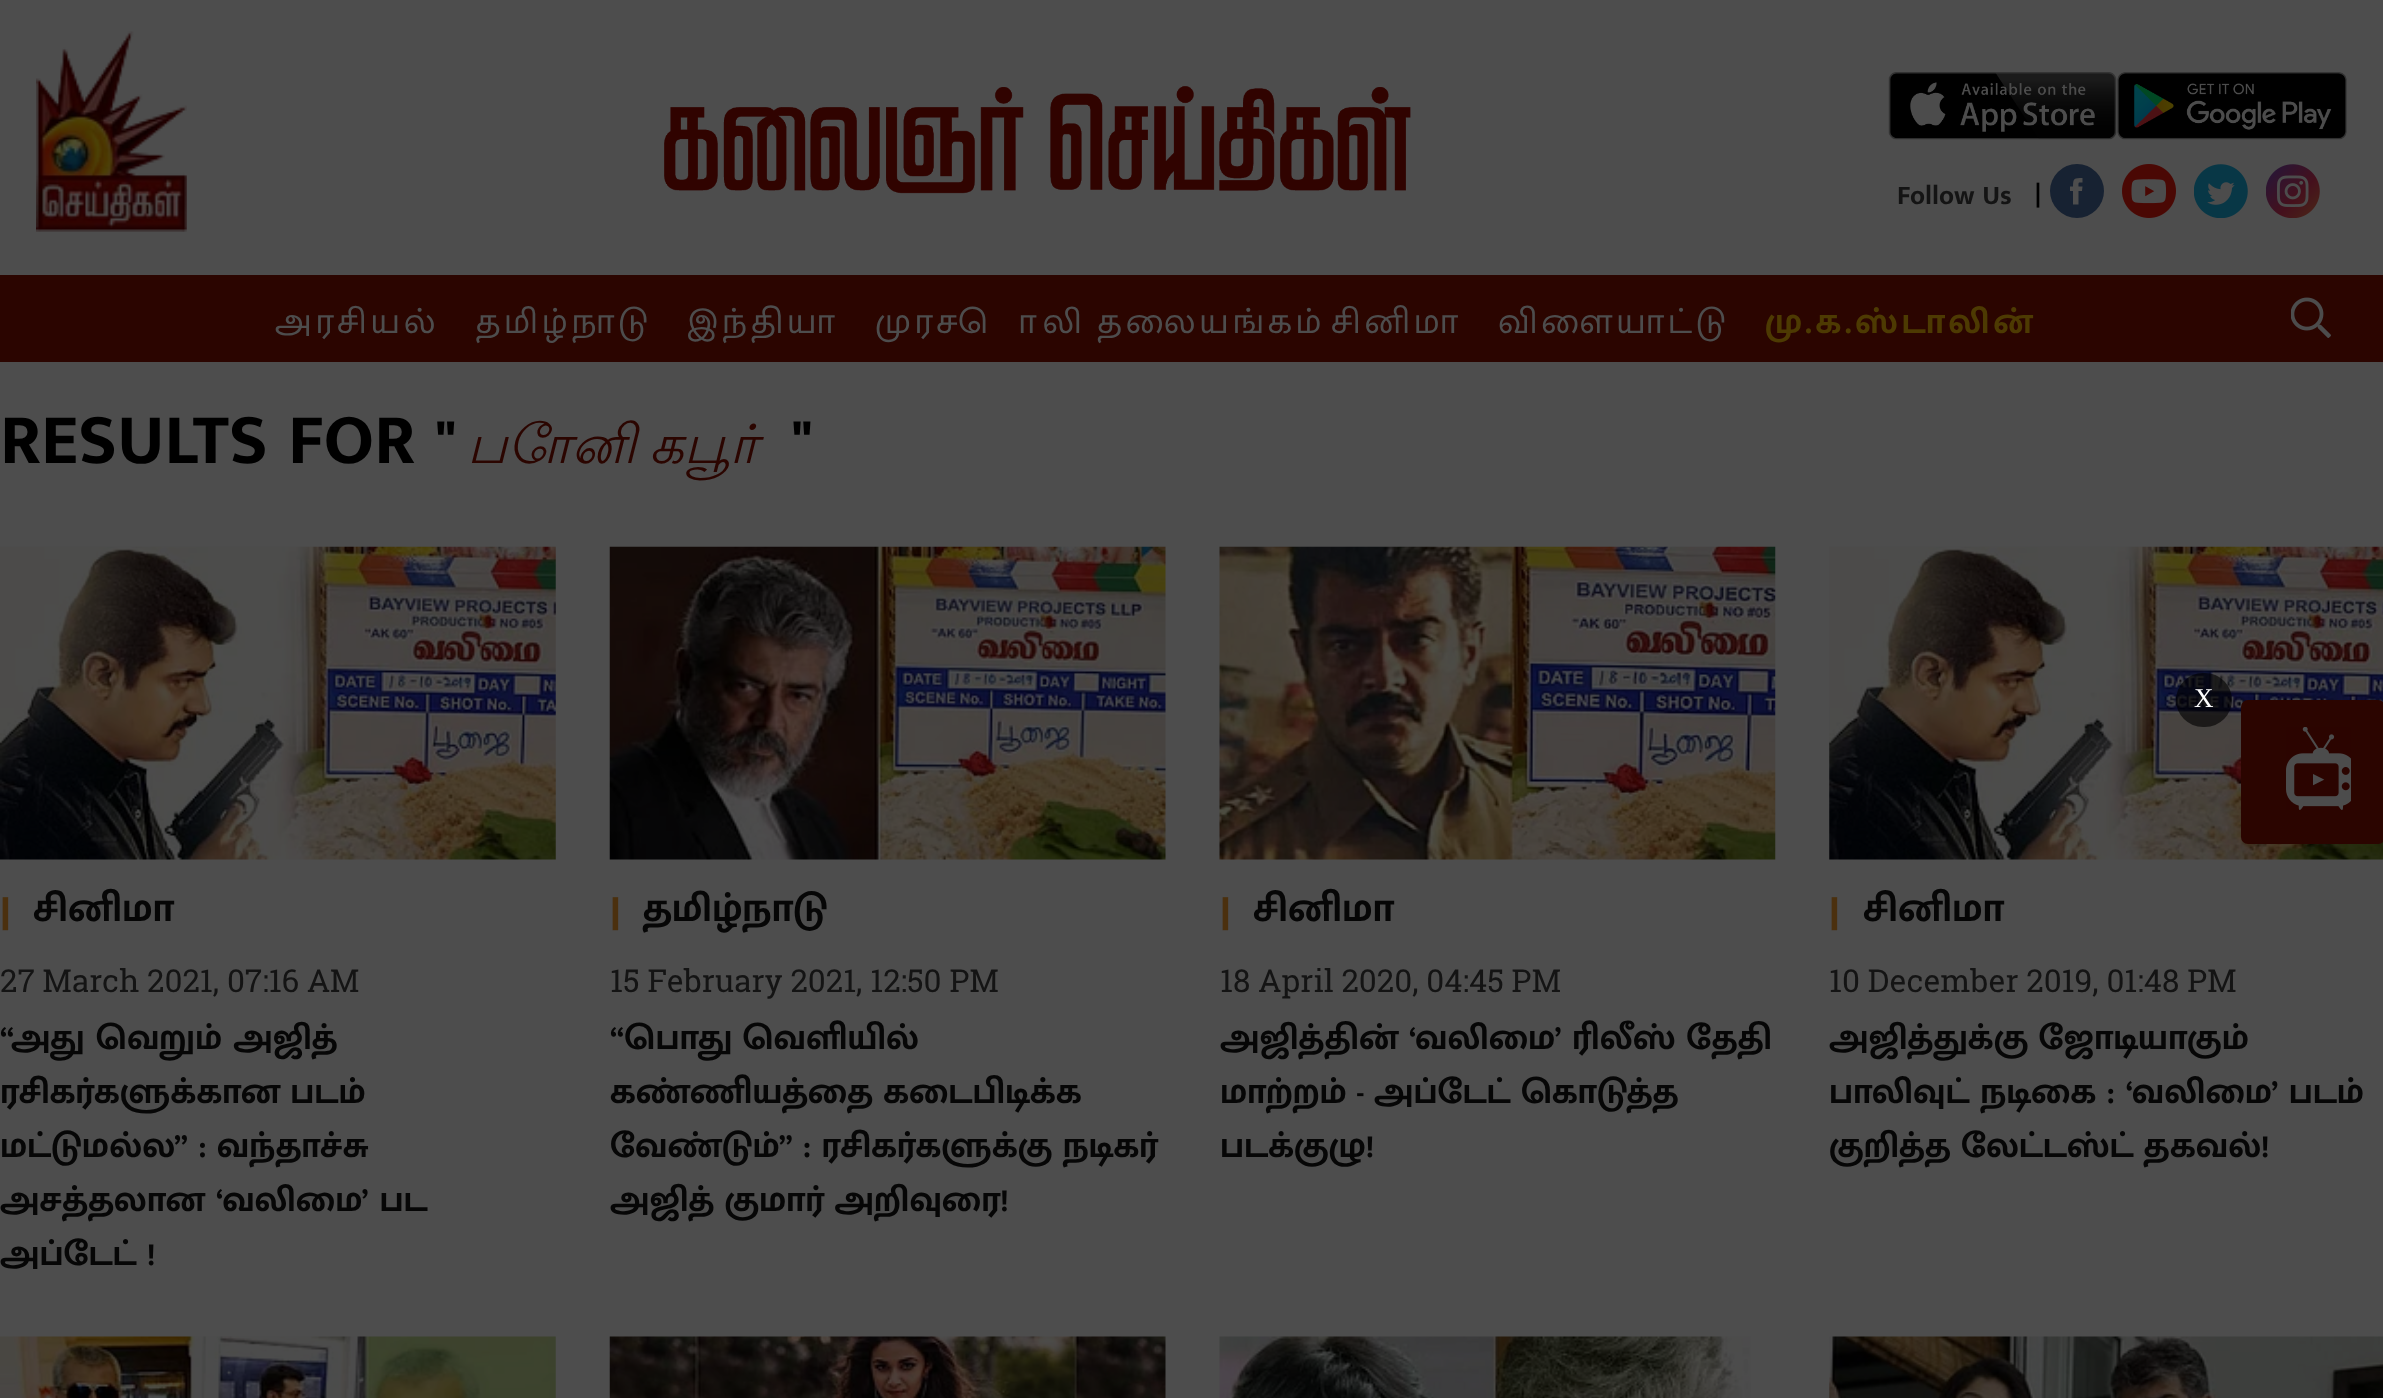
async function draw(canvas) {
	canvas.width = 2383;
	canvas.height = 1398;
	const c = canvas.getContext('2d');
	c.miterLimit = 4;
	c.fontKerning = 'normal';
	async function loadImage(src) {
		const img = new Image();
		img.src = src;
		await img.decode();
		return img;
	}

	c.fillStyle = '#4d4d4d';
	c.fillRect(0, 0, 2383, 1398);
	c.drawImage(await loadImage('img1.png'), 36, 31, 151, 201);
	c.drawImage(await loadImage('img2.png'), 664, 86, 747, 108);
	c.drawImage(await loadImage('img3.png'), 1888, 72, 229, 68);
	c.drawImage(await loadImage('img4.png'), 2117, 72, 230, 68);
	c.font = 'bold 27px Mukta Malar';
	c.fillStyle = '#141414';
	c.fillText('Follow Us', 1897, 204);
	c.font = '36px Mukta Malar';
	c.fillStyle = '#000';
	c.fillText('|', 2034, 204);
	c.fillStyle = '#172232';
	c.beginPath();
	c.arc(2077, 191, 27, 0, 2 * Math.PI);
	c.fill();
	c.drawImage(await loadImage('img5.png'), 2122, 164, 54, 54);
	c.drawImage(await loadImage('img6.png'), 2194, 164, 54, 54);
	c.drawImage(await loadImage('img7.png'), 2266, 164, 54, 54);
	c.fillStyle = '#4d4d4d';
	c.beginPath();
	c.moveTo(2078.5, 204.5);
	c.lineTo(2078.5, 191);
	c.lineTo(2082, 191);
	c.lineTo(2082.5, 186.5);
	c.lineTo(2078.5, 186.5);
	c.bezierCurveTo(2078.5, 182, 2078, 182.5, 2082.5, 182.5);
	c.lineTo(2082.5, 178);
	c.bezierCurveTo(2074.5, 178, 2073, 178, 2073, 186.5);
	c.lineTo(2070, 186.5);
	c.lineTo(2070, 191);
	c.lineTo(2073, 191);
	c.lineTo(2073, 204.5);
	c.closePath();
	c.fill();
	c.fillStyle = '#2b0500';
	c.fillRect(0, 275, 2383, 87);
	c.letterSpacing = '3.8px';
	c.fillStyle = '#4d4d4d';
	for (const [text, x, y] of [
		['அரசியல்', 275, 333],
		['தமிழ்நாடு', 476, 333],
		['இந்தியா', 687, 333],
	]) {
		c.fillText(text, x, y);
	}
	c.wordSpacing = '-2px';
	c.fillText('முரசொலி தலையங்கம்', 875, 333);
	c.wordSpacing = '0px';
	c.fillText('சினிமா', 1331, 333);
	c.fillText('விளையாட்டு', 1498, 333);
	c.font = 'bold 36px Mukta Malar';
	c.fillStyle = '#4d3a02';
	c.fillText('மு.க.ஸ்டாலின்', 1765, 333);
	c.drawImage(await loadImage('img8.png'), 2291, 297, 40, 41);
	c.letterSpacing = '0px';
	c.font = 'bold 72px Mukta Malar';
	c.fillStyle = '#000';
	c.fillText('RESULTS FOR "', 0, 463);
	c.wordSpacing = '-3px';
	c.font = 'italic 54px Lohit Tamil';
	c.fillStyle = '#2b0500';
	c.fillText('போனி கபூர்', 467, 463);
	c.wordSpacing = '0px';
	c.font = 'bold 72px Mukta Malar';
	c.fillStyle = '#000';
	c.fillText('"', 792, 463);
	c.drawImage(await loadImage('img9.png'), 0, 546, 556, 314);
	c.font = 'bold 45px Mukta Malar';
	c.fillStyle = '#4b300e';
	c.fillText('|', 0, 925);
	c.font = 'bold 40.5px Mukta Malar';
	c.fillStyle = '#060606';
	c.fillText('சினிமா', 33, 921);
	c.font = '31.5px Roboto Slab';
	c.fillStyle = '#141414';
	c.fillText('27 March 2021, 07:16 AM', 0, 992);
	c.wordSpacing = '1px';
	c.font = 'bold 36px Mukta Malar';
	c.fillStyle = '#060606';
	c.fillText('“அது வெறும் அஜித்', 0, 1049);
	c.wordSpacing = '0px';
	c.fillText('ரசிகர்களுக்கான படம்', 0, 1103);
	c.fillText('மட்டுமல்ல” : வந்தாச்சு', 0, 1157);
	c.wordSpacing = '1px';
	c.fillText('அசத்தலான ‘வலிமை’ பட', 0, 1211);
	c.wordSpacing = '0px';
	c.fillText('அப்டேட் !', 0, 1265);
	c.drawImage(await loadImage('img10.png'), 609, 546, 557, 314);
	c.font = 'bold 45px Mukta Malar';
	c.fillStyle = '#4b300e';
	c.fillText('|', 610, 925);
	c.font = 'bold 40.5px Mukta Malar';
	c.fillStyle = '#060606';
	c.fillText('தமிழ்நாடு', 643, 921);
	c.font = '31.5px Roboto Slab';
	c.fillStyle = '#141414';
	c.fillText('15 February 2021, 12:50 PM', 610, 992);
	c.font = 'bold 36px Mukta Malar';
	c.fillStyle = '#060606';
	for (const [text, x, y] of [
		['“பொது வெளியில்', 610, 1049],
		['கண்ணியத்தை கடைபிடிக்க', 610, 1103],
		['வேண்டும்” : ரசிகர்களுக்கு நடிகர்', 610, 1157],
		['அஜித் குமார் அறிவுரை!', 610, 1211],
	]) {
		c.fillText(text, x, y);
	}
	c.drawImage(await loadImage('img11.png'), 1219, 546, 557, 314);
	c.font = 'bold 45px Mukta Malar';
	c.fillStyle = '#4b300e';
	c.fillText('|', 1220, 925);
	c.font = 'bold 40.5px Mukta Malar';
	c.fillStyle = '#060606';
	c.fillText('சினிமா', 1253, 921);
	c.font = '31.5px Roboto Slab';
	c.fillStyle = '#141414';
	c.fillText('18 April 2020, 04:45 PM', 1220, 992);
	c.wordSpacing = '0.5px';
	c.font = 'bold 36px Mukta Malar';
	c.fillStyle = '#060606';
	c.fillText('அஜித்தின் ‘வலிமை’ ரிலீஸ் தேதி', 1220, 1049);
	c.wordSpacing = '0px';
	c.fillText('மாற்றம் - அப்டேட் கொடுத்த', 1220, 1103);
	c.fillText('படக்குழு!', 1220, 1157);
	c.drawImage(await loadImage('img12.png'), 1829, 546, 554, 314);
	c.font = 'bold 45px Mukta Malar';
	c.fillStyle = '#4b300e';
	c.fillText('|', 1829, 925);
	c.font = 'bold 40.5px Mukta Malar';
	c.fillStyle = '#060606';
	c.fillText('சினிமா', 1863, 921);
	c.font = '31.5px Roboto Slab';
	c.fillStyle = '#141414';
	c.fillText('10 December 2019, 01:48 PM', 1829, 992);
	c.font = 'bold 36px Mukta Malar';
	c.fillStyle = '#060606';
	c.fillText('அஜித்துக்கு ஜோடியாகும்', 1829, 1049);
	c.wordSpacing = '0.5px';
	c.fillText('பாலிவுட் நடிகை : ‘வலிமை’ படம்', 1829, 1103);
	c.wordSpacing = '0px';
	c.fillText('குறித்த லேட்டஸ்ட் தகவல்!', 1829, 1157);
	c.drawImage(await loadImage('img13.png'), 0, 1336, 556, 62);
	c.drawImage(await loadImage('img14.png'), 609, 1336, 557, 62);
	c.drawImage(await loadImage('img15.png'), 1219, 1336, 532, 62);
	c.drawImage(await loadImage('img16.png'), 1829, 1336, 554, 62);
	c.fillStyle = '#2b0500';
	c.beginPath();
	c.roundRect(2241, 700, 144, 144, 7);
	c.fill();
	c.drawImage(await loadImage('img17.png'), 2286, 727, 65, 83);
	c.fillStyle = '#00000099';
	c.beginPath();
	c.roundRect(2176, 673, 56, 54, 27);
	c.fill();
	c.font = '27px Liberation Serif';
	c.fillStyle = '#fff';
	c.fillText('X', 2194, 707);
}

draw(document.querySelector('canvas'));
